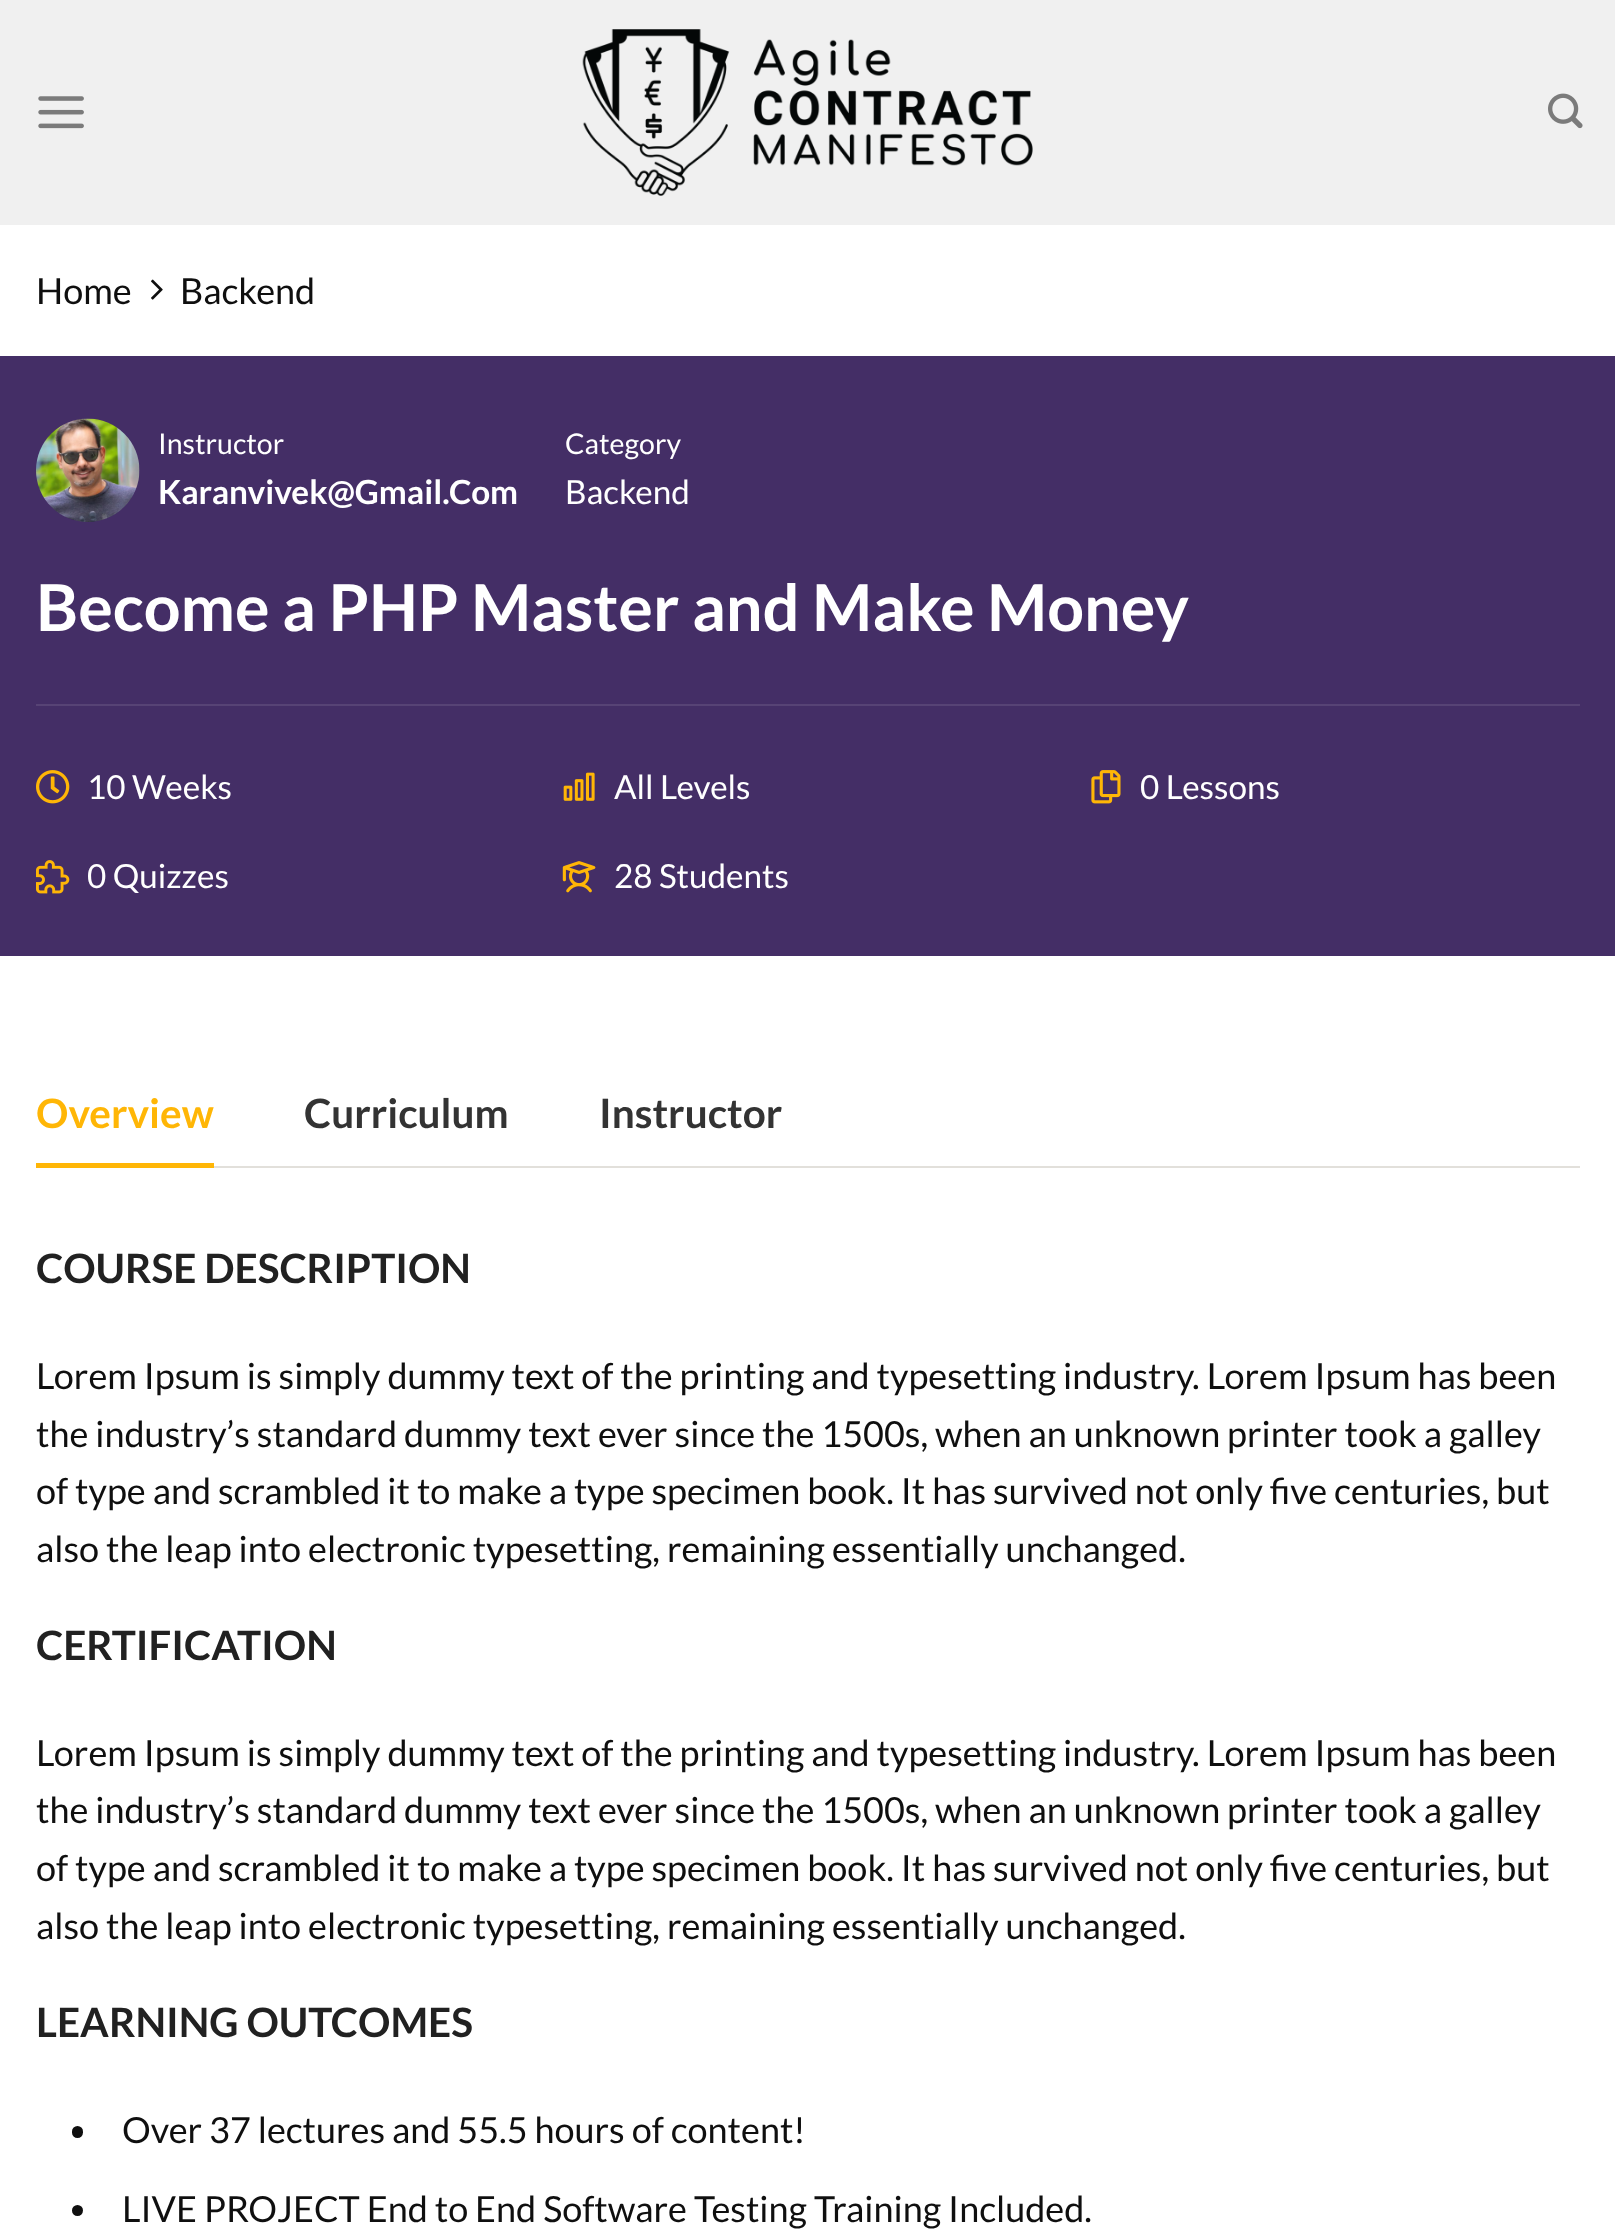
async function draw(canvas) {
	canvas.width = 1615;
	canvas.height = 2240;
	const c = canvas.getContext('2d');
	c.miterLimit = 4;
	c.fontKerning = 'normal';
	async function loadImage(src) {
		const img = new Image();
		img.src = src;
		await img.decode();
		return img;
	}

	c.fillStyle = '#fff';
	c.fillRect(0, 0, 1615, 2240);
	c.fillStyle = '#f0f0f0';
	c.fillRect(0, 0, 1615, 225);
	c.drawImage(await loadImage('img1.png'), 38, 96, 46, 33);
	c.drawImage(await loadImage('img2.png'), 582, 29, 451, 167);
	c.drawImage(await loadImage('img3.png'), 1548, 93, 35, 36);
	c.font = '36px Lato';
	c.fillStyle = '#0f0f0f';
	c.fillText('Home', 36, 304);
	c.drawImage(await loadImage('img4.png'), 151, 279, 12, 21);
	c.fillText('Backend', 180, 304);
	c.fillStyle = '#442e66';
	c.fillRect(0, 356, 1615, 600);
	c.drawImage(await loadImage('img5.png'), 36, 418, 104, 104);
	c.font = '28.5px Lato';
	c.fillStyle = '#fff';
	c.fillText('Instructor', 158, 454);
	c.font = 'bold 33.25px Lato';
	c.fillText('Karanvivek@Gmail.Com', 158, 504);
	c.font = '28.5px Lato';
	c.fillText('Category', 565, 454);
	c.font = '33.25px Lato';
	c.fillText('Backend', 565, 504);
	c.fillStyle = '#574375';
	c.fillRect(36, 704, 1544, 2);
	c.font = 'bold 64.75px Lato';
	c.fillStyle = '#fff';
	c.fillText('Become a PHP Master and Make Money', 36, 631);
	c.drawImage(await loadImage('img6.png'), 36, 770, 34, 34);
	c.font = '33.25px Lato';
	c.fillText('10 Weeks', 87, 799);
	c.drawImage(await loadImage('img7.png'), 563, 772, 32, 29);
	c.fillText('All Levels', 614, 799);
	c.drawImage(await loadImage('img8.png'), 1091, 770, 30, 34);
	c.fillText('0 Lessons', 1140, 799);
	c.drawImage(await loadImage('img9.png'), 36, 860, 34, 34);
	c.fillText('0 Quizzes', 87, 888);
	c.drawImage(await loadImage('img10.png'), 562, 861, 34, 32);
	c.fillText('28 Students', 614, 888);
	c.fillStyle = '#e2e0db';
	c.fillRect(214, 1166, 1366, 2);
	c.font = 'bold 40.5px Lato';
	c.fillStyle = '#ffb606';
	c.fillText('Overview', 36, 1128);
	c.fillRect(36, 1163, 178, 5);
	c.fillStyle = '#333';
	c.fillText('Curriculum', 304, 1128);
	c.fillText('Instructor', 599, 1128);
	c.fillStyle = '#212121';
	c.fillText('COURSE DESCRIPTION', 36, 1283);
	c.font = '36px Lato';
	c.fillStyle = '#0f0f0f';
	for (const [text, x, y] of [
		['Lorem Ipsum is simply dummy text of the printing and typesetting industry. Lorem Ipsum has been', 36, 1389],
		['the industry’s standard dummy text ever since the 1500s, when an unknown printer took a galley', 36, 1447],
		['of type and scrambled it to make a type specimen book. It has survived not only five centuries, but', 36, 1504],
		['also the leap into electronic typesetting, remaining essentially unchanged.', 36, 1562],
	]) {
		c.fillText(text, x, y);
	}
	c.font = 'bold 40.5px Lato';
	c.fillStyle = '#212121';
	c.fillText('CERTIFICATION', 36, 1660);
	c.font = '36px Lato';
	c.fillStyle = '#0f0f0f';
	for (const [text, x, y] of [
		['Lorem Ipsum is simply dummy text of the printing and typesetting industry. Lorem Ipsum has been', 36, 1766],
		['the industry’s standard dummy text ever since the 1500s, when an unknown printer took a galley', 36, 1823],
		['of type and scrambled it to make a type specimen book. It has survived not only five centuries, but', 36, 1881],
		['also the leap into electronic typesetting, remaining essentially unchanged.', 36, 1939],
	]) {
		c.fillText(text, x, y);
	}
	c.font = 'bold 40.5px Lato';
	c.fillStyle = '#212121';
	c.fillText('LEARNING OUTCOMES', 36, 2037);
	c.fillStyle = '#0f0f0f';
	c.beginPath();
	c.roundRect(72, 2126, 11, 12, 5.5);
	c.fill();
	c.font = '36px Lato';
	c.fillText('Over 37 lectures and 55.5 hours of content!', 122, 2143);
	c.beginPath();
	c.arc(77.5, 2210.5, 5.5, 0, 2 * Math.PI);
	c.fill();
	c.fillText('LIVE PROJECT End to End Software Testing Training Included.', 122, 2222);
}

draw(document.querySelector('canvas'));
